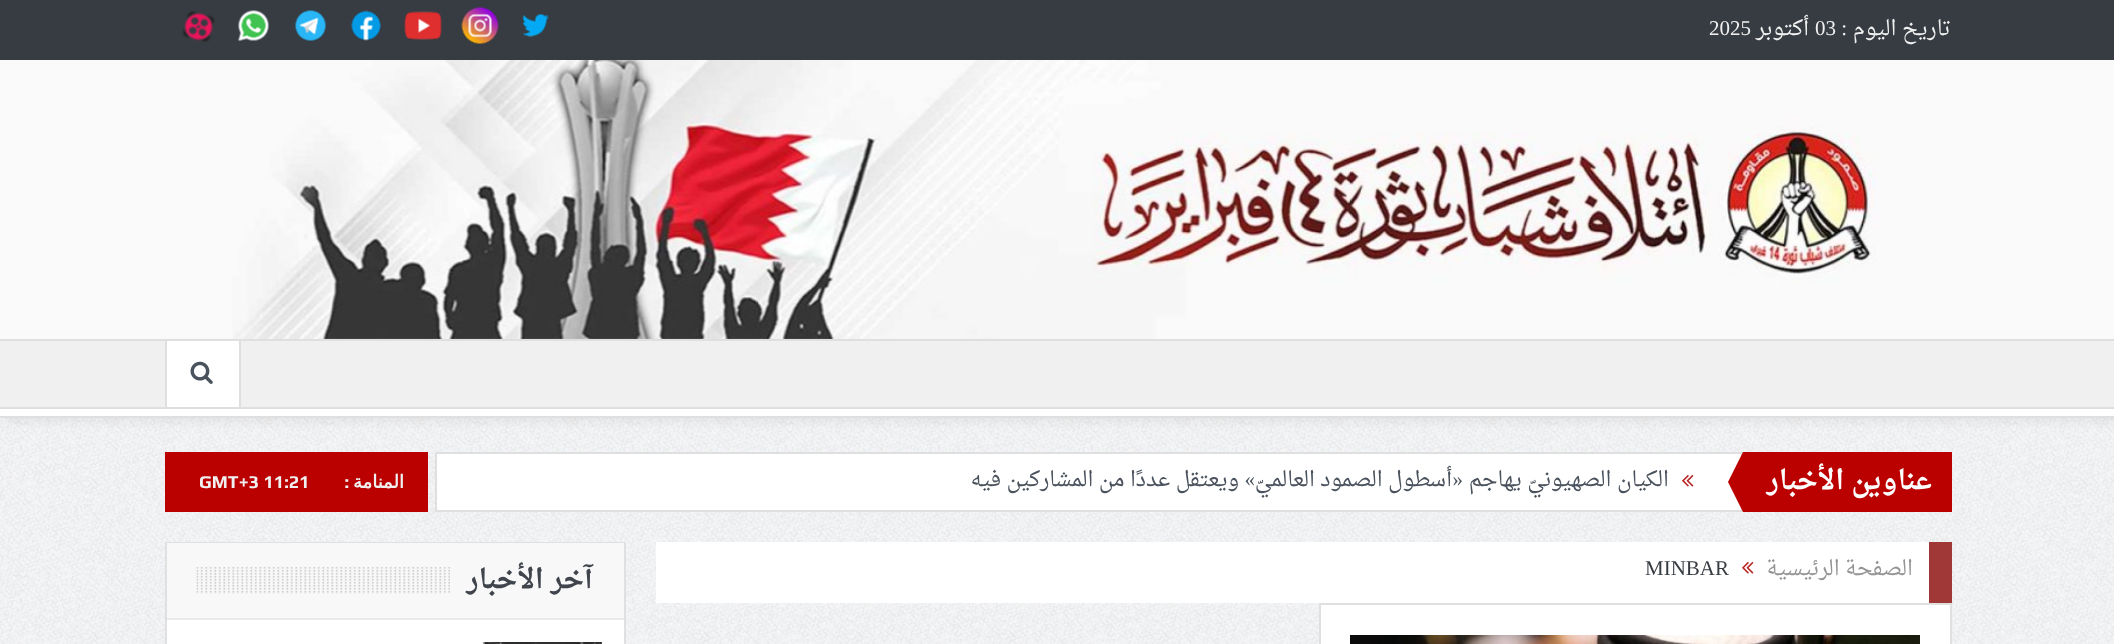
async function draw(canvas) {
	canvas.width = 2114;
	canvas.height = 644;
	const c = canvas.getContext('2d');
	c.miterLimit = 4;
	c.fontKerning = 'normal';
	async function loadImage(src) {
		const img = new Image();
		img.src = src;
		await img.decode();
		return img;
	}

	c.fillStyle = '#fff';
	c.fillRect(0, 0, 2114, 644);
	c.drawImage(await loadImage('img1.png'), 0, 418, 2114, 226);
	c.fillStyle = '#373c43';
	c.fillRect(0, 0, 2114, 60);
	c.direction = 'rtl';
	c.font = '21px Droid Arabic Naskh';
	c.fillStyle = '#f0f0f0';
	c.fillText('تاريخ اليوم', 1951, 35);
	c.font = '21px Liberation Serif';
	c.fillText(':', 1847, 35);
	c.direction = 'ltr';
	c.fillText('03', 1815, 35);
	c.direction = 'rtl';
	c.font = '21px Droid Arabic Naskh';
	c.fillText('أكتوبر', 1809, 35);
	c.direction = 'ltr';
	c.font = '21px Liberation Serif';
	c.fillText('2025', 1709, 35);
	c.drawImage(await loadImage('img2.png'), 522, 14, 27, 23);
	c.drawImage(await loadImage('img3.png'), 461, 7, 38, 37);
	c.drawImage(await loadImage('img4.png'), 404, 11, 38, 29);
	c.drawImage(await loadImage('img5.png'), 351, 10, 30, 31);
	c.drawImage(await loadImage('img6.png'), 295, 10, 31, 31);
	c.drawImage(await loadImage('img7.png'), 238, 10, 31, 32);
	c.drawImage(await loadImage('img8.png'), 182, 11, 33, 31);
	c.fillStyle = '#fafafa';
	c.fillRect(0, 60, 2114, 279);
	c.drawImage(await loadImage('img9.png'), 232, 60, 1645, 279);
	c.fillStyle = '#0000000d';
	c.filter = 'blur(4px)';
	c.beginPath();
	c.rect(5, 345, 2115, 78);
	c.fill();
	c.filter = 'none';
	for (const [x, y, w, h, color] of [
		[0, 409, 2114, 7, '#fff'],
		[0, 339, 2114, 2, '#dfdfdf'],
		[0, 416, 2114, 2, '#dfdfdf'],
		[0, 341, 2114, 66, '#f0f0f0'],
		[0, 407, 2114, 2, '#dfdfdf'],
		[167, 341, 72, 66, '#fff'],
		[239, 341, 2, 66, '#dfdfdf'],
		[165, 341, 2, 66, '#dfdfdf'],
	]) {
		c.fillStyle = color;
		c.fillRect(x, y, w, h);
	}
	c.drawImage(await loadImage('img10.png'), 190, 361, 23, 23);
	c.fillStyle = '#b00';
	c.fillRect(1743, 452, 209, 60);
	c.direction = 'rtl';
	c.font = 'bold 27px Droid Arabic Naskh';
	c.fillStyle = '#fff';
	c.fillText('عناوين الأخبار', 1932, 489);
	c.beginPath();
	c.rect(436, 453, 1306, 58);
	c.fill();
	c.strokeStyle = '#dfdfdf';
	c.lineWidth = 2;
	c.stroke();
	c.fillStyle = '#b00';
	c.beginPath();
	c.moveTo(1743, 452);
	c.lineTo(1743, 512);
	c.lineTo(1728, 482);
	c.closePath();
	c.fill();
	c.drawImage(await loadImage('img11.png'), 1682, 474, 12, 13);
	c.font = '21px Droid Arabic Naskh';
	c.fillStyle = '#4a525d';
	c.fillText('الكيان الصهيونيّ يهاجم', 1669, 486);
	c.font = '21px Liberation Serif';
	c.fillText('«', 1463, 486);
	c.font = '21px Droid Arabic Naskh';
	c.fillText('أسطول الصمود العالميّ', 1452, 486);
	c.font = '21px Liberation Serif';
	c.fillText('»', 1255, 486);
	c.font = '21px Droid Arabic Naskh';
	c.fillText('ويعتقل عددًا من المشاركين فيه', 1239, 486);
	c.fillStyle = '#b00';
	c.fillRect(165, 452, 263, 60);
	c.font = 'bold 18px DejaVu Sans';
	c.fillStyle = '#f0f0f0';
	c.fillText('المنامة', 404, 488);
	c.font = 'bold 18px Play';
	c.fillText(':', 349, 488);
	c.direction = 'ltr';
	c.fillText('GMT+3 11:21', 199, 488);
	c.fillStyle = '#fff';
	c.fillRect(656, 542, 1273, 61);
	c.fillStyle = '#a03838';
	c.fillRect(1929, 542, 23, 61);
	c.direction = 'rtl';
	c.font = '21px Droid Arabic Naskh';
	c.fillStyle = '#959595';
	c.fillText('الصفحة الرئيسية', 1913, 575);
	c.drawImage(await loadImage('img11.png'), 1742, 561, 12, 13);
	c.direction = 'ltr';
	c.font = '21px Liberation Serif';
	c.fillStyle = '#373c43';
	c.fillText('MINBAR', 1645, 575);
	c.fillStyle = '#fff';
	c.beginPath();
	c.rect(1320, 604, 631, 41);
	c.fill();
	c.strokeStyle = '#e0e0e0';
	c.stroke();
	c.drawImage(await loadImage('img12.png'), 1350, 635, 570, 9);
	c.fillRect(167, 620, 457, 24);
	c.strokeRect(166, 543, 459, 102);
	c.fillStyle = '#f8f8f8';
	c.fillRect(167, 543, 457, 75);
	c.fillStyle = '#eaeaea';
	c.fillRect(167, 618, 457, 2);
	c.drawImage(await loadImage('img13.png'), 196, 567, 254, 27);
	c.direction = 'rtl';
	c.font = 'bold 27px Droid Arabic Naskh';
	c.fillStyle = '#40454d';
	c.fillText('آخر الأخبار', 593, 588);
	c.drawImage(await loadImage('img14.png'), 482, 642, 120, 2);
}

draw(document.querySelector('canvas'));
